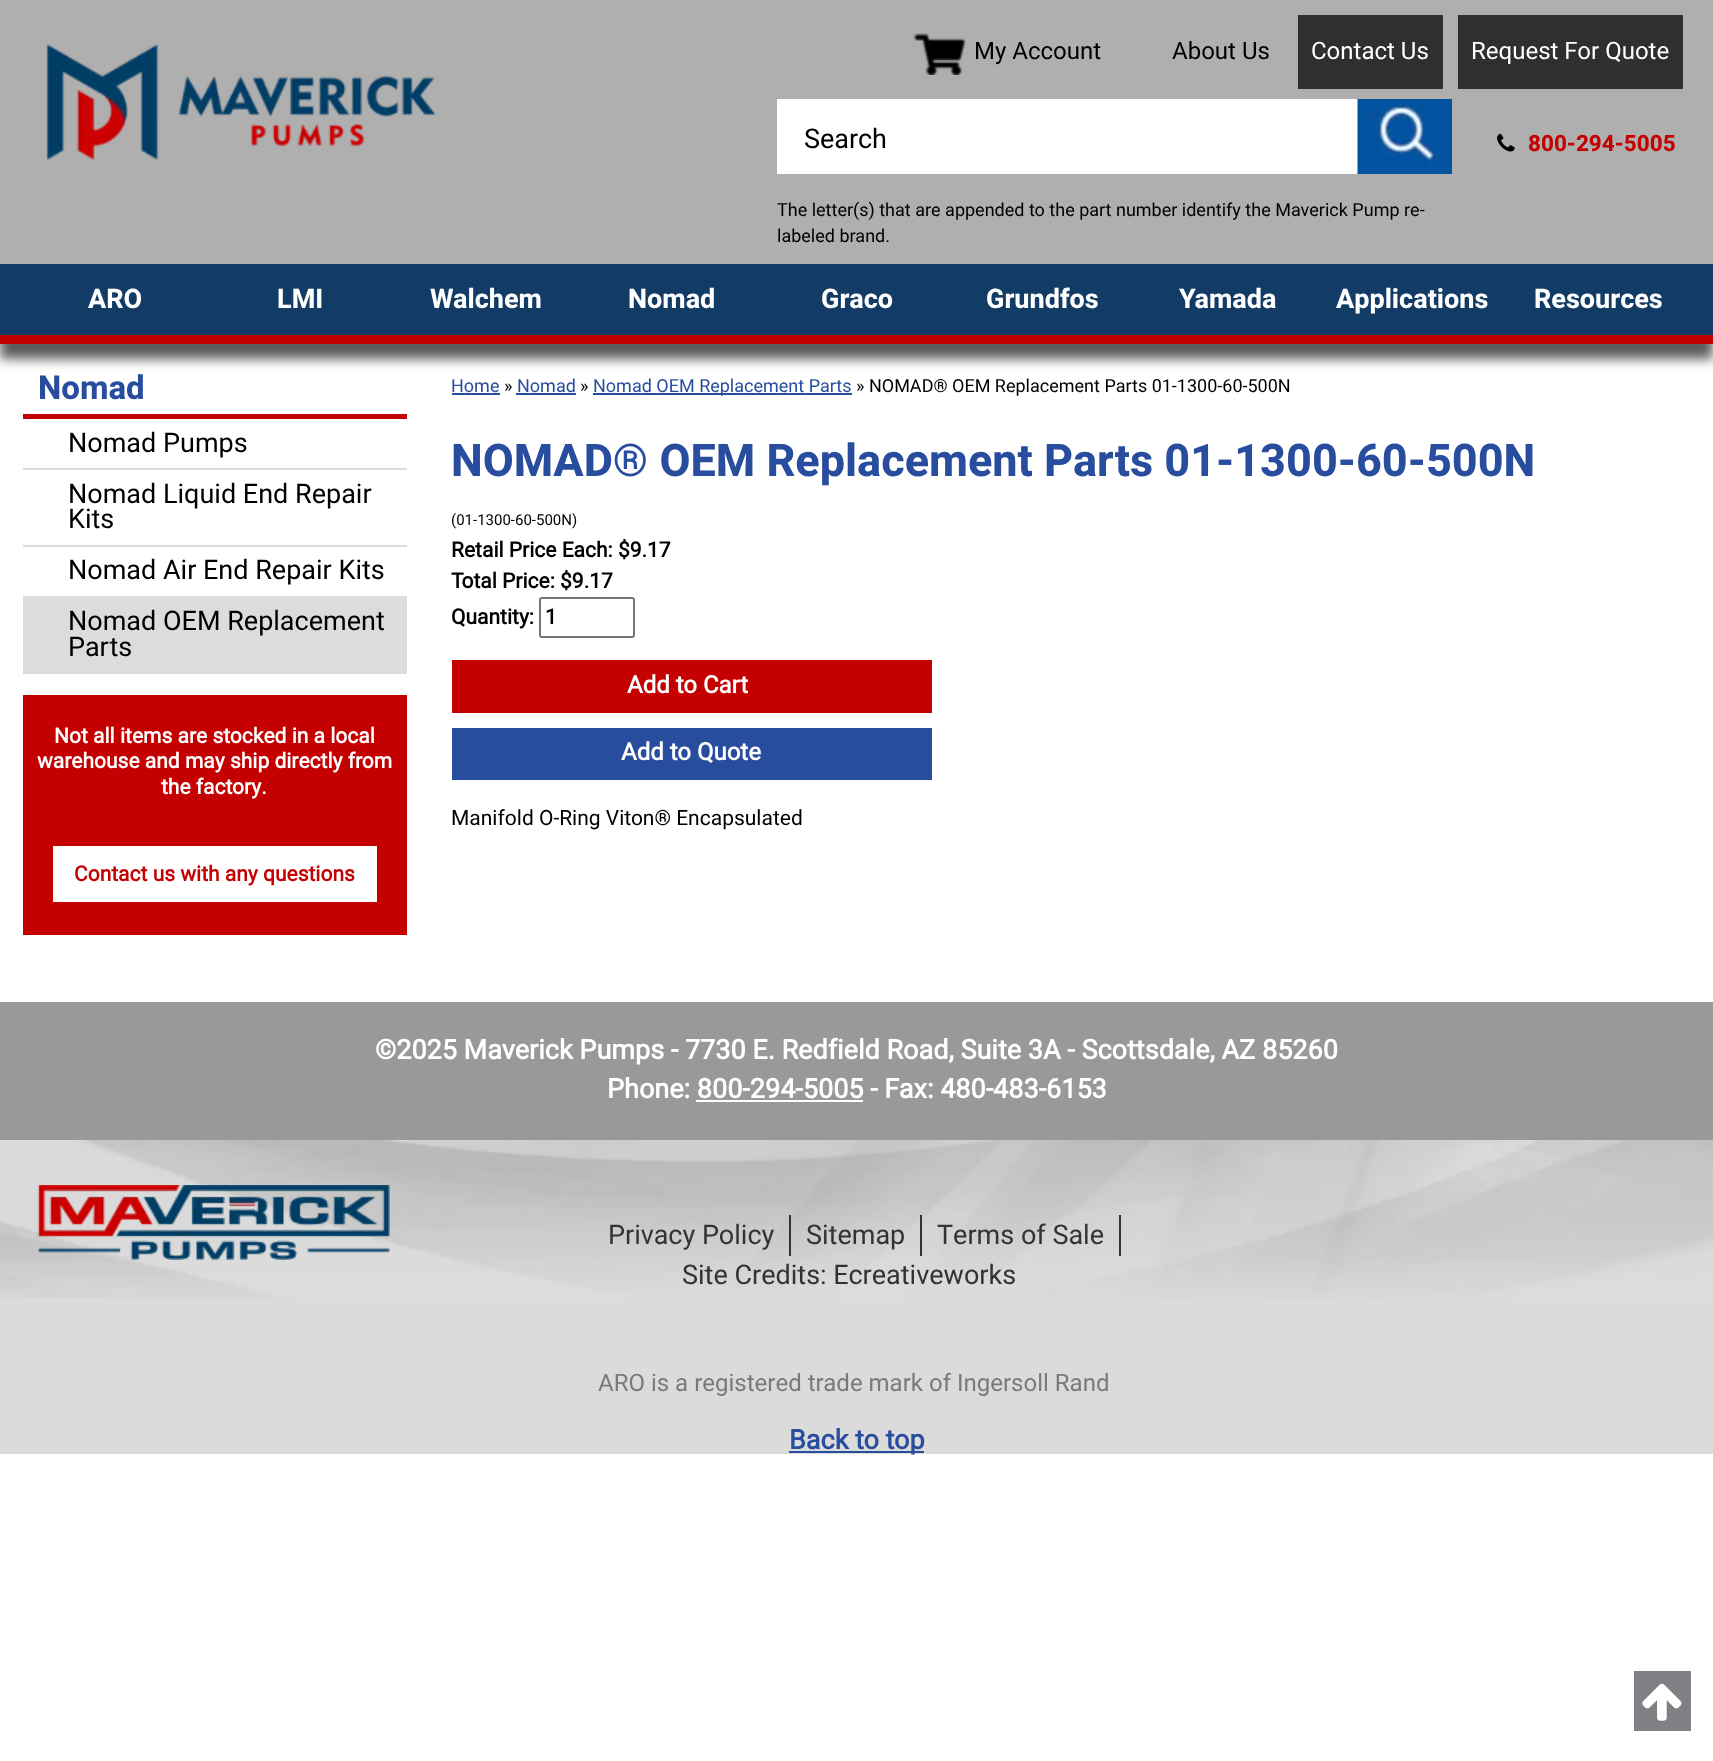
async function draw(canvas) {
	canvas.width = 1713;
	canvas.height = 1761;
	const c = canvas.getContext('2d');
	c.miterLimit = 4;
	c.fontKerning = 'normal';
	async function loadImage(src) {
		const img = new Image();
		img.src = src;
		await img.decode();
		return img;
	}

	c.fillStyle = '#fff';
	c.fillRect(0, 0, 1713, 1761);
	c.fillStyle = '#afafaf';
	c.fillRect(0, 0, 1713, 264);
	c.drawImage(await loadImage('img1.png'), 46, 44, 390, 117);
	c.drawImage(await loadImage('img2.png'), 913, 33, 53, 42);
	c.font = '24px Heebo';
	c.fillStyle = '#000';
	c.fillText('My Account', 974, 59);
	c.fillText('About Us', 1172, 59);
	c.fillStyle = '#2f2f2f';
	c.fillRect(1298, 15, 145, 74);
	c.fillStyle = '#fff';
	c.fillText('Contact Us', 1311, 59);
	c.fillStyle = '#2f2f2f';
	c.fillRect(1458, 15, 225, 74);
	c.fillStyle = '#fff';
	c.fillText('Request For Quote', 1471, 59);
	c.fillRect(777, 99, 581, 75);
	c.font = '27px Heebo';
	c.fillStyle = '#000';
	c.fillText('Search', 804, 148);
	c.drawImage(await loadImage('img3.png'), 1357, 99, 95, 75);
	c.font = '18px Heebo';
	c.fillText('The letter(s) that are appended to the part number identify the Maverick Pump re-', 777, 216);
	c.fillText('labeled brand.', 777, 242);
	c.drawImage(await loadImage('img4.png'), 1497, 133, 18, 19);
	c.font = 'bold 22.5px Heebo';
	c.fillStyle = '#c40000';
	c.fillText('800-294-5005', 1528, 151);
	c.fillStyle = '#323232cc';
	c.filter = 'blur(6px)';
	c.beginPath();
	c.rect(0, 279, 1713, 80);
	c.fill();
	c.filter = 'none';
	c.fillStyle = '#123c66';
	c.fillRect(0, 264, 1713, 71);
	c.fillStyle = '#c40000';
	c.fillRect(0, 335, 1713, 9);
	c.font = 'bold 27px Heebo';
	c.fillStyle = '#fff';
	for (const [text, x, y] of [
		['ARO', 88, 308],
		['LMI', 277, 308],
		['Walchem', 430, 308],
		['Nomad', 628, 308],
		['Graco', 821, 308],
		['Grundfos', 986, 308],
		['Yamada', 1179, 308],
		['Applications', 1336, 308],
		['Resources', 1534, 308],
	]) {
		c.fillText(text, x, y);
	}
	c.fillStyle = '#c40000';
	c.fillRect(23, 414, 384, 5);
	c.font = 'bold 33px Heebo';
	c.fillStyle = '#284d9f';
	c.fillText('Nomad', 38, 399);
	c.fillStyle = '#dcdcdc';
	c.fillRect(23, 468, 384, 2);
	c.font = '27px Heebo';
	c.fillStyle = '#000';
	c.fillText('Nomad Pumps', 68, 452);
	c.fillStyle = '#dcdcdc';
	c.fillRect(23, 545, 384, 2);
	c.fillStyle = '#000';
	c.fillText('Nomad Liquid End Repair', 68, 503);
	c.fillText('Kits', 68, 528);
	c.fillStyle = '#dcdcdc';
	c.fillRect(23, 596, 384, 78);
	c.fillStyle = '#000';
	for (const [text, x, y] of [
		['Nomad Air End Repair Kits', 68, 579],
		['Nomad OEM Replacement', 68, 630],
		['Parts', 68, 656],
	]) {
		c.fillText(text, x, y);
	}
	c.fillStyle = '#c40000';
	c.fillRect(23, 695, 384, 240);
	c.font = 'bold 21px "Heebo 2"';
	c.fillStyle = '#fff';
	for (const [text, x, y] of [
		['Not all items are stocked in a local', 54, 743],
		['warehouse and may ship directly from', 37, 768],
		['the factory.', 161, 794],
	]) {
		c.fillText(text, x, y);
	}
	c.fillRect(53, 846, 324, 56);
	c.fillStyle = '#c40000';
	c.fillText('Contact us with any questions', 74, 881);
	c.font = '18px Heebo';
	c.fillStyle = '#284d9f';
	c.fillText('Home', 451, 392);
	c.fillRect(452, 393, 48, 2);
	c.fillStyle = '#000';
	c.fillText('»', 504, 392);
	c.fillStyle = '#284d9f';
	c.fillText('Nomad', 517, 392);
	c.fillRect(516, 393, 60, 2);
	c.fillStyle = '#000';
	c.fillText('»', 580, 392);
	c.fillStyle = '#284d9f';
	c.fillRect(593, 393, 259, 2);
	c.fillText('Nomad OEM Replacement Parts', 593, 392);
	c.fillStyle = '#000';
	c.fillText('» NOMAD® OEM Replacement Parts 01-1300-60-500N', 856, 392);
	c.font = 'bold 45px Heebo';
	c.fillStyle = '#284d9f';
	c.fillText('NOMAD® OEM Replacement Parts 01-1300-60-500N', 451, 476);
	c.font = '15px Heebo';
	c.fillStyle = '#000';
	c.fillText('(01-1300-60-500N)', 451, 525);
	c.font = 'bold 21px "Heebo 2"';
	for (const [text, x, y] of [
		['Retail Price Each: $9.17', 451, 557],
		['Total Price: $9.17', 451, 588],
		['Quantity:', 451, 624],
	]) {
		c.fillText(text, x, y);
	}
	c.beginPath();
	c.roundRect(540, 598, 94, 39, 2);
	c.strokeStyle = '#767676';
	c.lineWidth = 2;
	c.stroke();
	c.fillText('1', 545, 624);
	c.fillStyle = '#c40000';
	c.fillRect(452, 660, 480, 53);
	c.font = 'bold 24px "Heebo 2"';
	c.fillStyle = '#fff';
	c.fillText('Add to Cart', 627, 693);
	c.fillStyle = '#284d9f';
	c.fillRect(452, 728, 480, 52);
	c.fillStyle = '#fff';
	c.fillText('Add to Quote', 621, 760);
	c.font = '21px Heebo';
	c.fillStyle = '#000';
	c.fillText('Manifold O-Ring Viton® Encapsulated', 451, 825);
	c.fillStyle = '#999';
	c.fillRect(0, 1002, 1713, 138);
	c.font = 'bold 27px "Heebo 2"';
	c.fillStyle = '#fff';
	c.fillText('©2025 Maverick Pumps - 7730 E. Redfield Road, Suite 3A - Scottsdale, AZ 85260', 375, 1059);
	c.fillText('Phone: 800-294-5005 - Fax: 480-483-6153', 607, 1098);
	c.fillRect(696, 1100, 167, 2);
	c.fillStyle = '#dbdbdb';
	c.fillRect(0, 1298, 1713, 156);
	c.drawImage(await loadImage('img5.png'), 0, 1140, 1713, 158);
	c.drawImage(await loadImage('img6.png'), 37, 1185, 353, 75);
	c.fillStyle = '#333';
	c.fillRect(789, 1215, 2, 41);
	c.font = '27px Heebo';
	c.fillText('Privacy Policy', 608, 1244);
	c.fillRect(920, 1215, 2, 41);
	c.fillText('Sitemap', 806, 1244);
	c.fillRect(1119, 1215, 2, 41);
	c.fillText('Terms of Sale', 937, 1244);
	c.fillText('Site Credits: Ecreativeworks', 682, 1284);
	c.font = '24px Heebo';
	c.fillStyle = '#7a7a7a';
	c.fillText('ARO is a registered trade mark of Ingersoll Rand', 598, 1391);
	c.fillStyle = '#284d9f';
	c.fillRect(789, 1451, 135, 2);
	c.font = 'bold 27px "Heebo 2"';
	c.fillText('Back to top', 789, 1449);
	c.fillStyle = '#807f83';
	c.fillRect(1634, 1671, 57, 60);
	c.drawImage(await loadImage('img7.png'), 1642, 1683, 40, 38);
}

draw(document.querySelector('canvas'));
